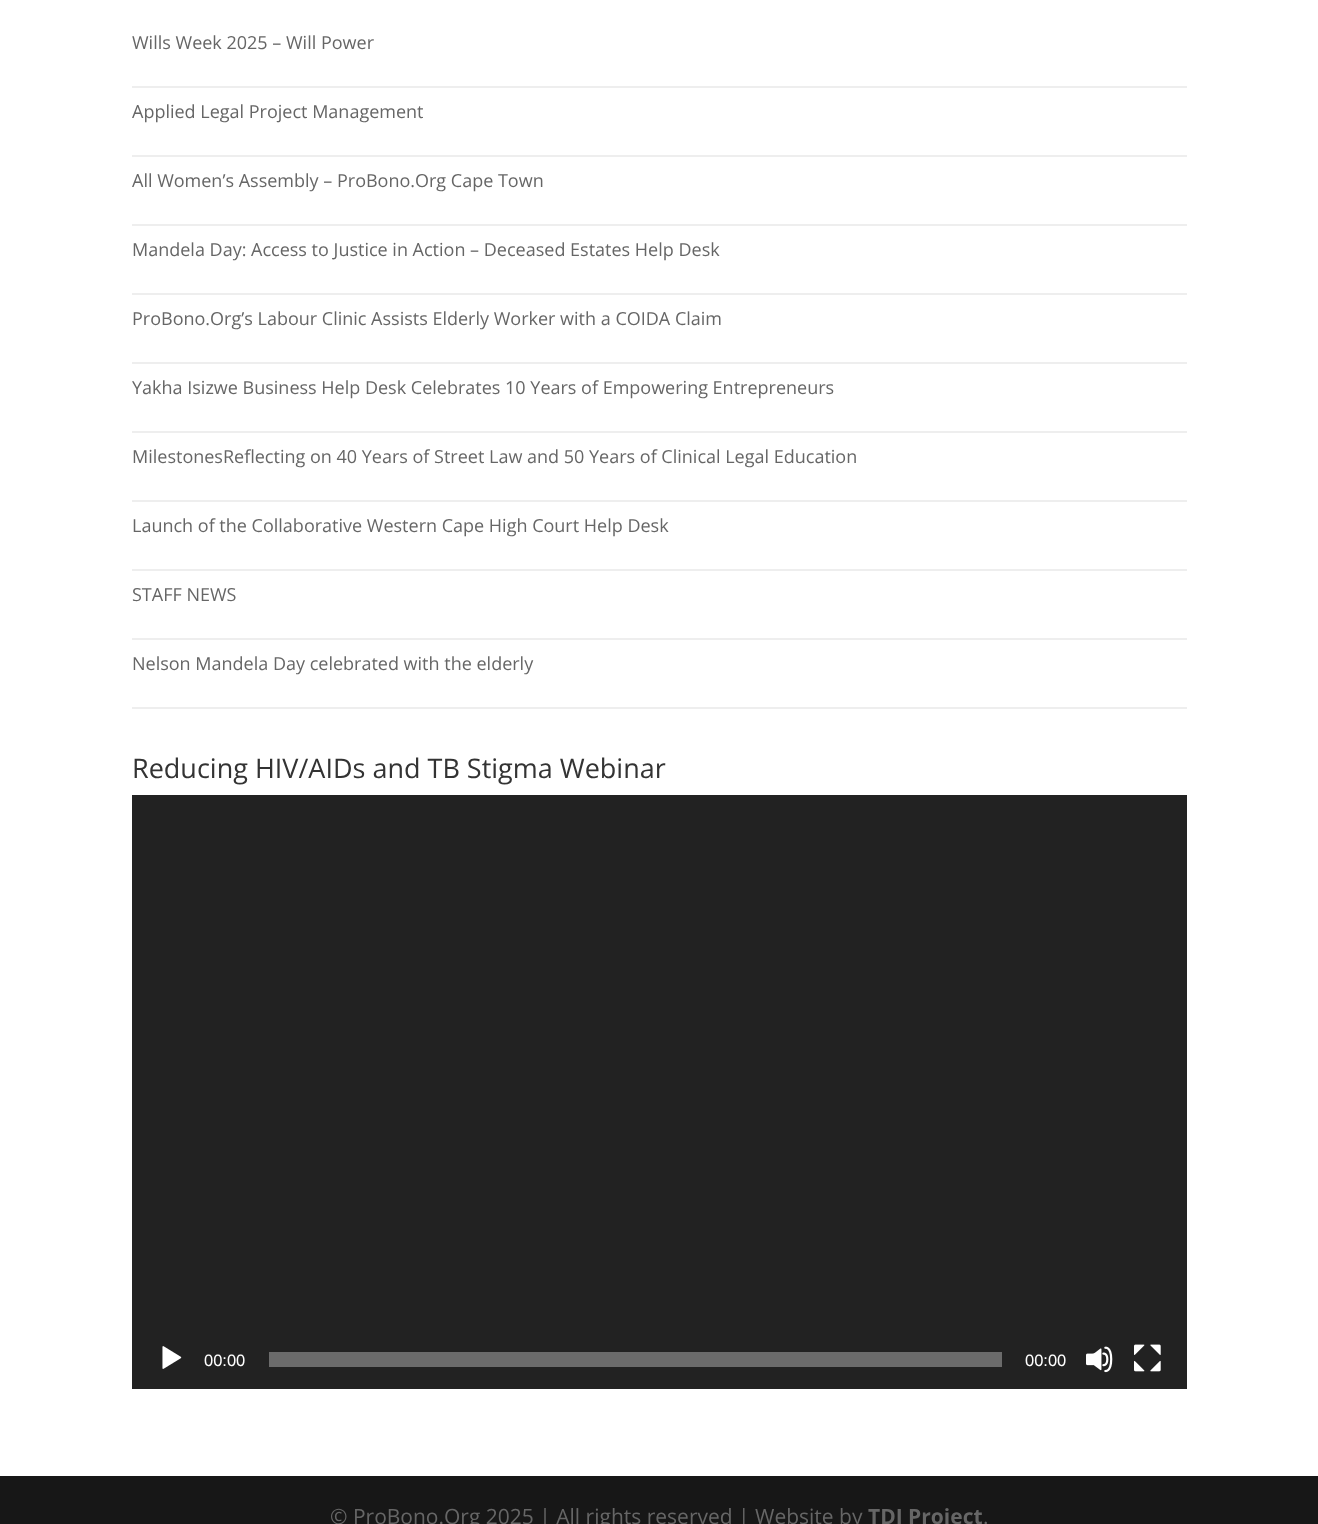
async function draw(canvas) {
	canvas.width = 1318;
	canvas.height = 1524;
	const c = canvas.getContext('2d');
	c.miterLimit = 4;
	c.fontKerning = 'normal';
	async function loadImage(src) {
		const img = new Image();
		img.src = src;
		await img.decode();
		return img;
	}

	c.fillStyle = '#fff';
	c.fillRect(0, 0, 1318, 1524);
	c.fillStyle = '#eee';
	c.fillRect(132, 86, 1055, 2);
	c.font = '18px Open Sans';
	c.fillStyle = '#666';
	c.fillText('Wills Week 2025 – Will Power', 132, 49);
	c.fillStyle = '#eee';
	c.fillRect(132, 155, 1055, 2);
	c.fillStyle = '#666';
	c.fillText('Applied Legal Project Management', 132, 118);
	c.fillStyle = '#eee';
	c.fillRect(132, 224, 1055, 2);
	c.fillStyle = '#666';
	c.fillText('All Women’s Assembly – ProBono.Org Cape Town', 132, 187);
	c.fillStyle = '#eee';
	c.fillRect(132, 293, 1055, 2);
	c.fillStyle = '#666';
	c.fillText('Mandela Day: Access to Justice in Action – Deceased Estates Help Desk', 132, 256);
	c.fillStyle = '#eee';
	c.fillRect(132, 362, 1055, 2);
	c.fillStyle = '#666';
	c.fillText('ProBono.Org’s Labour Clinic Assists Elderly Worker with a COIDA Claim', 132, 325);
	c.fillStyle = '#eee';
	c.fillRect(132, 431, 1055, 2);
	c.fillStyle = '#666';
	c.fillText('Yakha Isizwe Business Help Desk Celebrates 10 Years of Empowering Entrepreneurs', 132, 394);
	c.fillStyle = '#eee';
	c.fillRect(132, 500, 1055, 2);
	c.fillStyle = '#666';
	c.fillText('MilestonesReflecting on 40 Years of Street Law and 50 Years of Clinical Legal Education', 132, 463);
	c.fillStyle = '#eee';
	c.fillRect(132, 569, 1055, 2);
	c.fillStyle = '#666';
	c.fillText('Launch of the Collaborative Western Cape High Court Help Desk', 132, 532);
	c.fillStyle = '#eee';
	c.fillRect(132, 638, 1055, 2);
	c.fillStyle = '#666';
	c.fillText('STAFF NEWS', 132, 601);
	c.fillStyle = '#eee';
	c.fillRect(132, 707, 1055, 2);
	c.fillStyle = '#666';
	c.fillText('Nelson Mandela Day celebrated with the elderly', 132, 670);
	c.font = '27px Open Sans';
	c.fillStyle = '#333';
	c.fillText('Reducing HIV/AIDs and TB Stigma Webinar', 132, 778);
	c.fillStyle = '#222';
	c.fillRect(132, 795, 1055, 594);
	c.drawImage(await loadImage('img1.png'), 162, 1346, 20, 23);
	c.font = '16.5px Liberation Sans';
	c.fillStyle = '#fff';
	c.fillText('00:00', 204, 1366);
	c.fillStyle = '#6b6b6b';
	c.fillRect(269, 1352, 733, 15);
	c.fillStyle = '#fff';
	c.fillText('00:00', 1025, 1366);
	c.drawImage(await loadImage('img2.png'), 1086, 1346, 27, 27);
	c.drawImage(await loadImage('img3.png'), 1134, 1344, 27, 28);
	c.fillStyle = '#171717';
	c.fillRect(0, 1476, 1318, 48);
	c.font = '21px Open Sans';
	c.fillStyle = '#666';
	c.fillText('© ProBono.Org 2025 | All rights reserved | Website by', 330, 1524);
	c.font = 'bold 21px Open Sans';
	c.fillText('TDI Project', 868, 1524);
	c.font = '21px Open Sans';
	c.fillText('.', 983, 1524);
}

draw(document.querySelector('canvas'));
